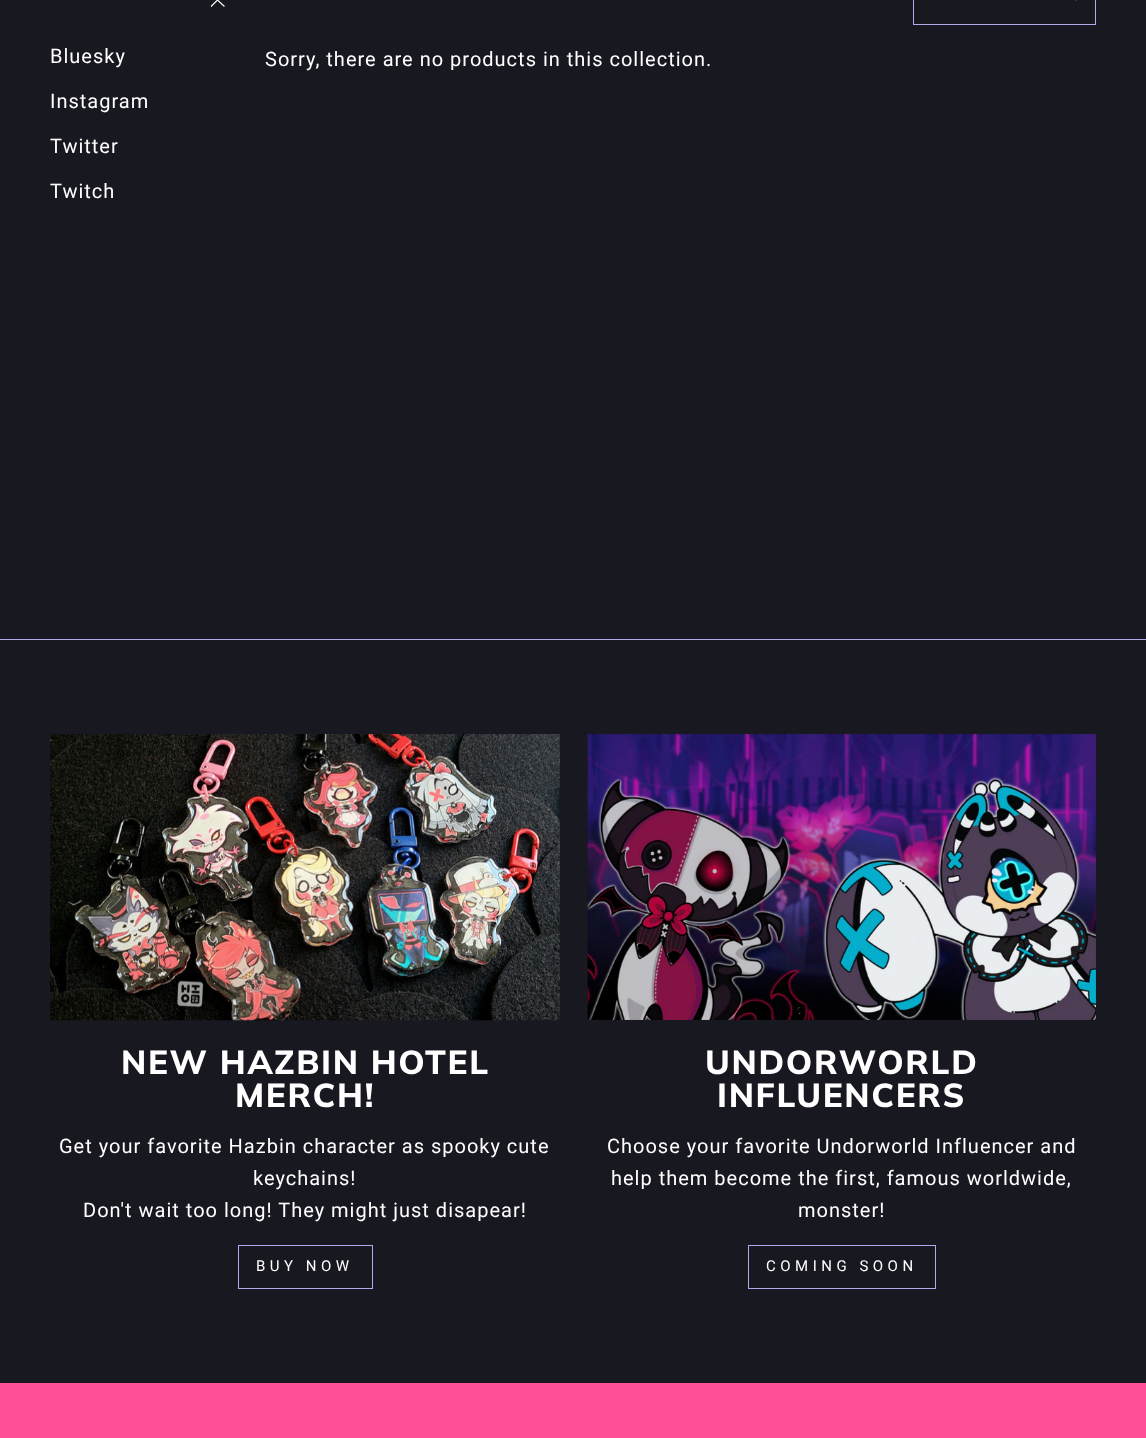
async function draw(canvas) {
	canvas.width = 1146;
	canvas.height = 1438;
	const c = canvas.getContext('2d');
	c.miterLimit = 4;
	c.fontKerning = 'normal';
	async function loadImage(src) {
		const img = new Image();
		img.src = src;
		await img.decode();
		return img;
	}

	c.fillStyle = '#181821';
	c.fillRect(0, 0, 1146, 1438);
	c.beginPath();
	c.moveTo(211, 6.5);
	c.lineTo(217.5, 0);
	c.lineTo(224.5, 6.5);
	c.strokeStyle = '#fff';
	c.lineWidth = 1.1;
	c.stroke();
	c.letterSpacing = '1px';
	c.font = '20px Roboto';
	c.fillStyle = '#fff';
	for (const [text, x, y] of [
		['Bluesky', 50, 63],
		['Instagram', 50, 108],
		['Twitter', 50, 153],
		['Twitch', 50, 198],
	]) {
		c.fillText(text, x, y);
	}
	c.drawImage(await loadImage('img1.png'), 1075, 0, 2, 1);
	c.strokeStyle = '#adabef';
	c.lineWidth = 1;
	c.strokeRect(913.5, -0.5, 182, 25);
	c.fillText('Sorry, there are no products in this collection.', 265, 66);
	c.fillStyle = '#adabef';
	c.fillRect(0, 639, 1146, 1);
	c.drawImage(await loadImage('img2.png'), 50, 734, 510, 287);
	c.letterSpacing = '1.7px';
	c.font = '800 33.25px Muli';
	c.fillStyle = '#fff';
	c.fillText('NEW HAZBIN HOTEL', 121, 1074);
	c.fillText('MERCH!', 235, 1107);
	c.letterSpacing = '1px';
	c.font = '20px Roboto';
	for (const [text, x, y] of [
		['Get your favorite Hazbin character as spooky cute', 59, 1153],
		['keychains!', 253, 1185],
		['Don\'t wait too long! They might just disapear!', 83, 1217],
	]) {
		c.fillText(text, x, y);
	}
	c.strokeRect(238.5, 1245.5, 134, 43);
	c.letterSpacing = '4.5px';
	c.font = '15px Roboto';
	c.fillText('BUY NOW', 256, 1271);
	c.drawImage(await loadImage('img3.png'), 587, 734, 509, 286);
	c.letterSpacing = '1.7px';
	c.font = '800 33.25px Muli';
	c.fillText('UNDORWORLD', 705, 1074);
	c.fillText('INFLUENCERS', 717, 1107);
	c.letterSpacing = '1px';
	c.font = '20px Roboto';
	for (const [text, x, y] of [
		['Choose your favorite Undorworld Influencer and', 607, 1153],
		['help them become the first, famous worldwide,', 611, 1185],
		['monster!', 798, 1217],
	]) {
		c.fillText(text, x, y);
	}
	c.strokeRect(748.5, 1245.5, 187, 43);
	c.letterSpacing = '4.5px';
	c.font = '15px Roboto';
	c.fillText('COMING SOON', 766, 1271);
	c.fillStyle = '#ff5095';
	c.fillRect(0, 1383, 1146, 55);
}

draw(document.querySelector('canvas'));
